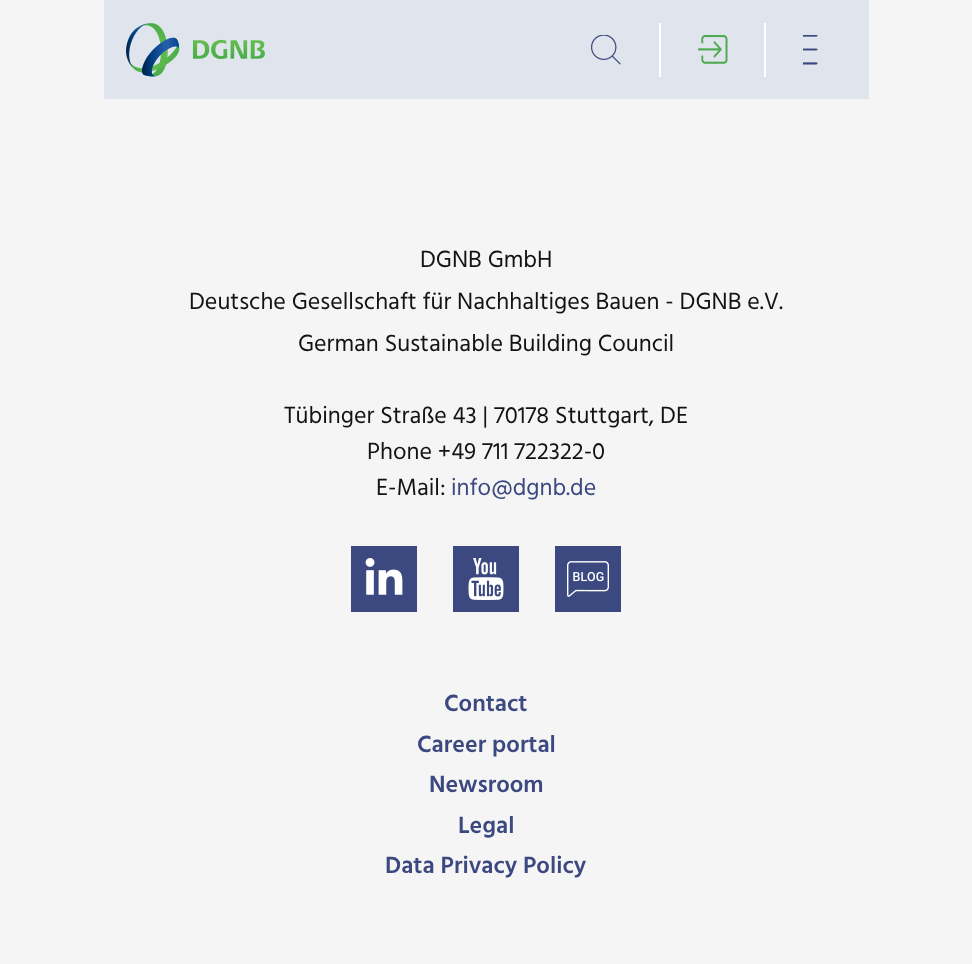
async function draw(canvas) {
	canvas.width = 972;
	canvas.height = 964;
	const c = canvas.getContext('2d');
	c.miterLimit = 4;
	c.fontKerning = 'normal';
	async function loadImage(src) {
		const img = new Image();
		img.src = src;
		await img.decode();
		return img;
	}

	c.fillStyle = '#f5f5f5';
	c.fillRect(0, 0, 972, 964);
	c.fillStyle = '#e0e4ed';
	c.fillRect(104, 0, 765, 99);
	c.drawImage(await loadImage('img1.png'), 126, 23, 139, 54);
	c.drawImage(await loadImage('img2.png'), 591, 35, 30, 30);
	c.fillStyle = '#fff';
	c.fillRect(659, 23, 2, 54);
	c.drawImage(await loadImage('img3.png'), 698, 35, 30, 29);
	c.fillRect(764, 23, 2, 54);
	c.drawImage(await loadImage('img4.png'), 803, 35, 15, 30);
	c.font = '24px Hind';
	c.fillStyle = '#131313';
	for (const [text, x, y] of [
		['DGNB GmbH', 420, 267],
		['Deutsche Gesellschaft für Nachhaltiges Bauen - DGNB e.V.', 189, 309],
		['German Sustainable Building Council', 298, 351],
		['Tübinger Straße 43 | 70178 Stuttgart, DE', 284, 423],
		['Phone +49 711 722322-0', 367, 459],
		['E-Mail:', 376, 495],
	]) {
		c.fillText(text, x, y);
	}
	c.fillStyle = '#3c4981';
	c.fillText('info@dgnb.de', 451, 495);
	c.fillRect(351, 546, 66, 66);
	c.drawImage(await loadImage('img5.png'), 365, 558, 38, 37);
	c.fillRect(453, 546, 66, 66);
	c.drawImage(await loadImage('img6.png'), 468, 558, 36, 42);
	c.fillRect(555, 546, 66, 66);
	c.drawImage(await loadImage('img7.png'), 567, 561, 42, 36);
	c.font = '600 24px Hind';
	for (const [text, x, y] of [
		['Contact', 444, 711],
		['Career portal', 417, 752],
		['Newsroom', 429, 792],
		['Legal', 458, 833],
		['Data Privacy Policy', 385, 873],
	]) {
		c.fillText(text, x, y);
	}
}

draw(document.querySelector('canvas'));
